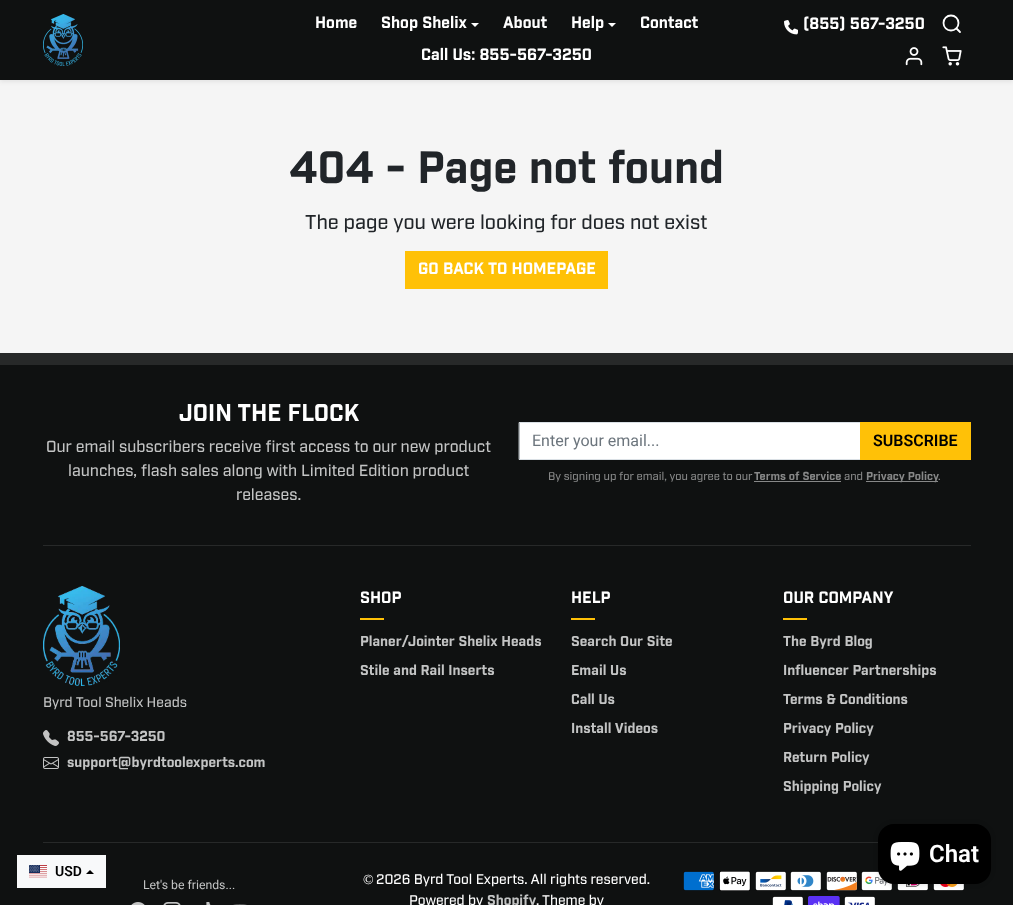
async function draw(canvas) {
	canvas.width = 1013;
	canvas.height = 905;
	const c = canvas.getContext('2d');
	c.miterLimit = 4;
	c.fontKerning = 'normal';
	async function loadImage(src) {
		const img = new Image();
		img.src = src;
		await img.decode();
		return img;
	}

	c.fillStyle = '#f5f5f5';
	c.fillRect(0, 0, 1013, 905);
	c.fillStyle = '#00000012';
	c.filter = 'blur(2px)';
	c.beginPath();
	c.rect(0, 2, 1013, 80);
	c.fill();
	c.filter = 'none';
	c.fillStyle = '#0f1111';
	c.fillRect(0, 0, 1013, 80);
	c.drawImage(await loadImage('img1.png'), 43, 14, 40, 52);
	c.font = 'bold 16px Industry';
	c.fillStyle = '#fff';
	c.fillText('Home', 315, 28);
	c.fillText('Shop Shelix', 381, 28);
	c.beginPath();
	c.moveTo(471, 23);
	c.lineTo(479, 23);
	c.lineTo(475, 27);
	c.closePath();
	c.fill();
	c.fillText('About', 503, 28);
	c.fillText('Help', 571, 28);
	c.beginPath();
	c.moveTo(608, 23);
	c.lineTo(616, 23);
	c.lineTo(612, 27);
	c.closePath();
	c.fill();
	c.fillText('Contact', 640, 28);
	c.fillText('Call Us: 855-567-3250', 421, 60);
	c.drawImage(await loadImage('img2.png'), 784, 20, 14, 15);
	c.fillText('(855) 567-3250', 803, 29);
	c.beginPath();
	c.arc(951, 23, 7.5, 0, 2 * Math.PI);
	c.strokeStyle = '#fff';
	c.lineWidth = 1.8;
	c.stroke();
	c.beginPath();
	c.moveTo(960, 32);
	c.lineTo(956.5, 28.5);
	c.lineCap = 'round';
	c.lineJoin = 'round';
	c.stroke();
	c.drawImage(await loadImage('img3.png'), 905, 47, 18, 19);
	c.drawImage(await loadImage('img4.png'), 942, 46, 20, 20);
	c.font = 'bold 44px Industry';
	c.fillStyle = '#212529';
	c.fillText('404 - Page not found', 289, 183);
	c.font = '500 20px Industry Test';
	c.fillText('The page you were looking for does not exist', 305, 229);
	c.fillStyle = '#ffc107';
	c.fillRect(405, 251, 203, 38);
	c.font = 'bold 16px Industry';
	c.fillStyle = '#fff';
	c.fillText('GO BACK TO HOMEPAGE', 418, 274);
	for (const [x, y, w, h, color] of [
		[0, 353, 1013, 12, '#272929'],
		[0, 365, 1013, 540, '#0f1111'],
		[43, 545, 928, 1, '#272929'],
	]) {
		c.fillStyle = color;
		c.fillRect(x, y, w, h);
	}
	c.font = 'bold 23.5px Industry';
	c.fillStyle = '#fff';
	c.fillText('JOIN THE FLOCK', 179, 421);
	c.font = '500 16px Industry Test';
	c.fillStyle = '#c3c4c4';
	for (const [text, x, y] of [
		['Our email subscribers receive first access to our new product', 46, 452],
		['launches, flash sales along with Limited Edition product', 68, 476],
		['releases.', 236, 500],
	]) {
		c.fillText(text, x, y);
	}
	c.fillStyle = '#fff';
	c.beginPath();
	c.rect(519.5, 422.5, 341, 37);
	c.fill();
	c.strokeStyle = '#dae0e5';
	c.lineWidth = 1;
	c.lineJoin = 'miter';
	c.stroke();
	c.font = '16px Roboto';
	c.fillStyle = '#6c757d';
	c.fillText('Enter your email...', 532, 446);
	c.fillStyle = '#ffc107';
	c.fillRect(860, 422, 111, 38);
	c.font = '600 16px Roboto';
	c.fillStyle = '#000';
	c.fillText('SUBSCRIBE', 873, 446);
	c.font = '500 11.25px Industry Test';
	c.fillStyle = '#878888';
	c.fillText('By signing up for email, you agree to our', 548, 480);
	c.font = 'bold 11.25px Industry';
	c.fillText('Terms of Service', 754, 480);
	c.fillRect(754, 481, 87, 1);
	c.font = '500 11.25px Industry Test';
	c.fillText('and', 844, 480);
	c.fillRect(866, 481, 72, 1);
	c.font = 'bold 11.25px Industry';
	c.fillText('Privacy Policy', 866, 480);
	c.font = '500 11.25px Industry Test';
	c.fillText('.', 938, 480);
	c.drawImage(await loadImage('img5.png'), 43, 586, 77, 100);
	c.font = '500 14px Industry Test';
	c.fillStyle = '#c3c4c4';
	c.fillText('Byrd Tool Shelix Heads', 43, 707);
	c.drawImage(await loadImage('img6.png'), 43, 730, 16, 16);
	c.font = 'bold 14px Industry';
	c.fillText('855-567-3250', 67, 741);
	c.drawImage(await loadImage('img7.png'), 43, 757, 16, 12);
	c.fillText('support@byrdtoolexperts.com', 67, 767);
	c.font = 'bold 16px Industry';
	c.fillStyle = '#fff';
	c.fillText('SHOP', 360, 603);
	c.fillStyle = '#ffc107';
	c.fillRect(360, 618, 24, 2);
	c.font = 'bold 14px Industry';
	c.fillStyle = '#c3c4c4';
	c.fillText('Planer/Jointer Shelix Heads', 360, 646);
	c.fillText('Stile and Rail Inserts', 360, 675);
	c.font = 'bold 16px Industry';
	c.fillStyle = '#fff';
	c.fillText('HELP', 571, 603);
	c.fillStyle = '#ffc107';
	c.fillRect(571, 618, 24, 2);
	c.font = 'bold 14px Industry';
	c.fillStyle = '#c3c4c4';
	for (const [text, x, y] of [
		['Search Our Site', 571, 646],
		['Email Us', 571, 675],
		['Call Us', 571, 704],
		['Install Videos', 571, 733],
	]) {
		c.fillText(text, x, y);
	}
	c.font = 'bold 16px Industry';
	c.fillStyle = '#fff';
	c.fillText('OUR COMPANY', 783, 603);
	c.fillStyle = '#ffc107';
	c.fillRect(783, 618, 24, 2);
	c.font = 'bold 14px Industry';
	c.fillStyle = '#c3c4c4';
	for (const [text, x, y] of [
		['The Byrd Blog', 783, 646],
		['Influencer Partnerships', 783, 675],
		['Terms & Conditions', 783, 704],
		['Privacy Policy', 783, 733],
		['Return Policy', 783, 762],
		['Shipping Policy', 783, 791],
	]) {
		c.fillText(text, x, y);
	}
	c.fillStyle = '#272929';
	c.fillRect(43, 842, 835, 1);
	c.font = '12.25px Roboto';
	c.fillStyle = '#c3c4c4';
	c.fillText('Let\'s be friends...', 143, 889);
	c.drawImage(await loadImage('img8.png'), 131, 902, 14, 3);
	c.drawImage(await loadImage('img9.png'), 163, 902, 18, 3);
	c.drawImage(await loadImage('img10.png'), 206, 902, 5, 3);
	c.drawImage(await loadImage('img11.png'), 233, 904, 14, 1);
	c.font = '14px Liberation Serif';
	c.fillStyle = '#fff';
	c.fillText('©', 363, 884);
	c.font = '500 14px Industry Test';
	c.fillText('2026 Byrd Tool Experts. All rights reserved.', 376, 884);
	c.fillText('Powered by', 409, 905);
	c.font = 'bold 14px Industry';
	c.fillStyle = '#c3c4c4';
	c.fillText('Shopify', 487, 905);
	c.font = '500 14px Industry Test';
	c.fillStyle = '#fff';
	c.fillText('.', 536, 905);
	c.fillText('Theme by', 542, 905);
	c.drawImage(await loadImage('img12.png'), 683, 871, 31, 20);
	c.drawImage(await loadImage('img13.png'), 719, 871, 32, 20);
	c.drawImage(await loadImage('img14.png'), 755, 871, 31, 20);
	c.drawImage(await loadImage('img15.png'), 790, 871, 31, 20);
	c.drawImage(await loadImage('img16.png'), 826, 871, 31, 20);
	c.drawImage(await loadImage('img17.png'), 861, 871, 31, 20);
	c.drawImage(await loadImage('img18.png'), 897, 884, 31, 7);
	c.drawImage(await loadImage('img19.png'), 933, 884, 31, 7);
	c.drawImage(await loadImage('img20.png'), 772, 896, 31, 9);
	c.drawImage(await loadImage('img21.png'), 808, 896, 32, 9);
	c.drawImage(await loadImage('img22.png'), 844, 896, 31, 9);
	c.fillStyle = '#00000026';
	c.filter = 'blur(2.5px)';
	c.beginPath();
	c.roundRect(878, 824, 113, 60, 16);
	c.fill();
	c.filter = 'none';
	c.fillStyle = '#000';
	c.beginPath();
	c.roundRect(878, 824, 113, 60, 16);
	c.fill();
	c.drawImage(await loadImage('img23.png'), 890, 842, 30, 29);
	c.font = '600 24px Roboto';
	c.fillStyle = '#fff';
	c.fillText('Chat', 929, 862);
	c.fillStyle = '#f8f9fa';
	c.fillRect(17, 855, 89, 33);
	c.drawImage(await loadImage('img24.png'), 29, 865, 18, 13);
	c.font = '600 14px Roboto';
	c.fillStyle = '#000';
	c.fillText('USD', 55, 876);
	c.beginPath();
	c.moveTo(94, 874);
	c.lineTo(86, 874);
	c.lineTo(90, 870);
	c.closePath();
	c.fill();
}

draw(document.querySelector('canvas'));
